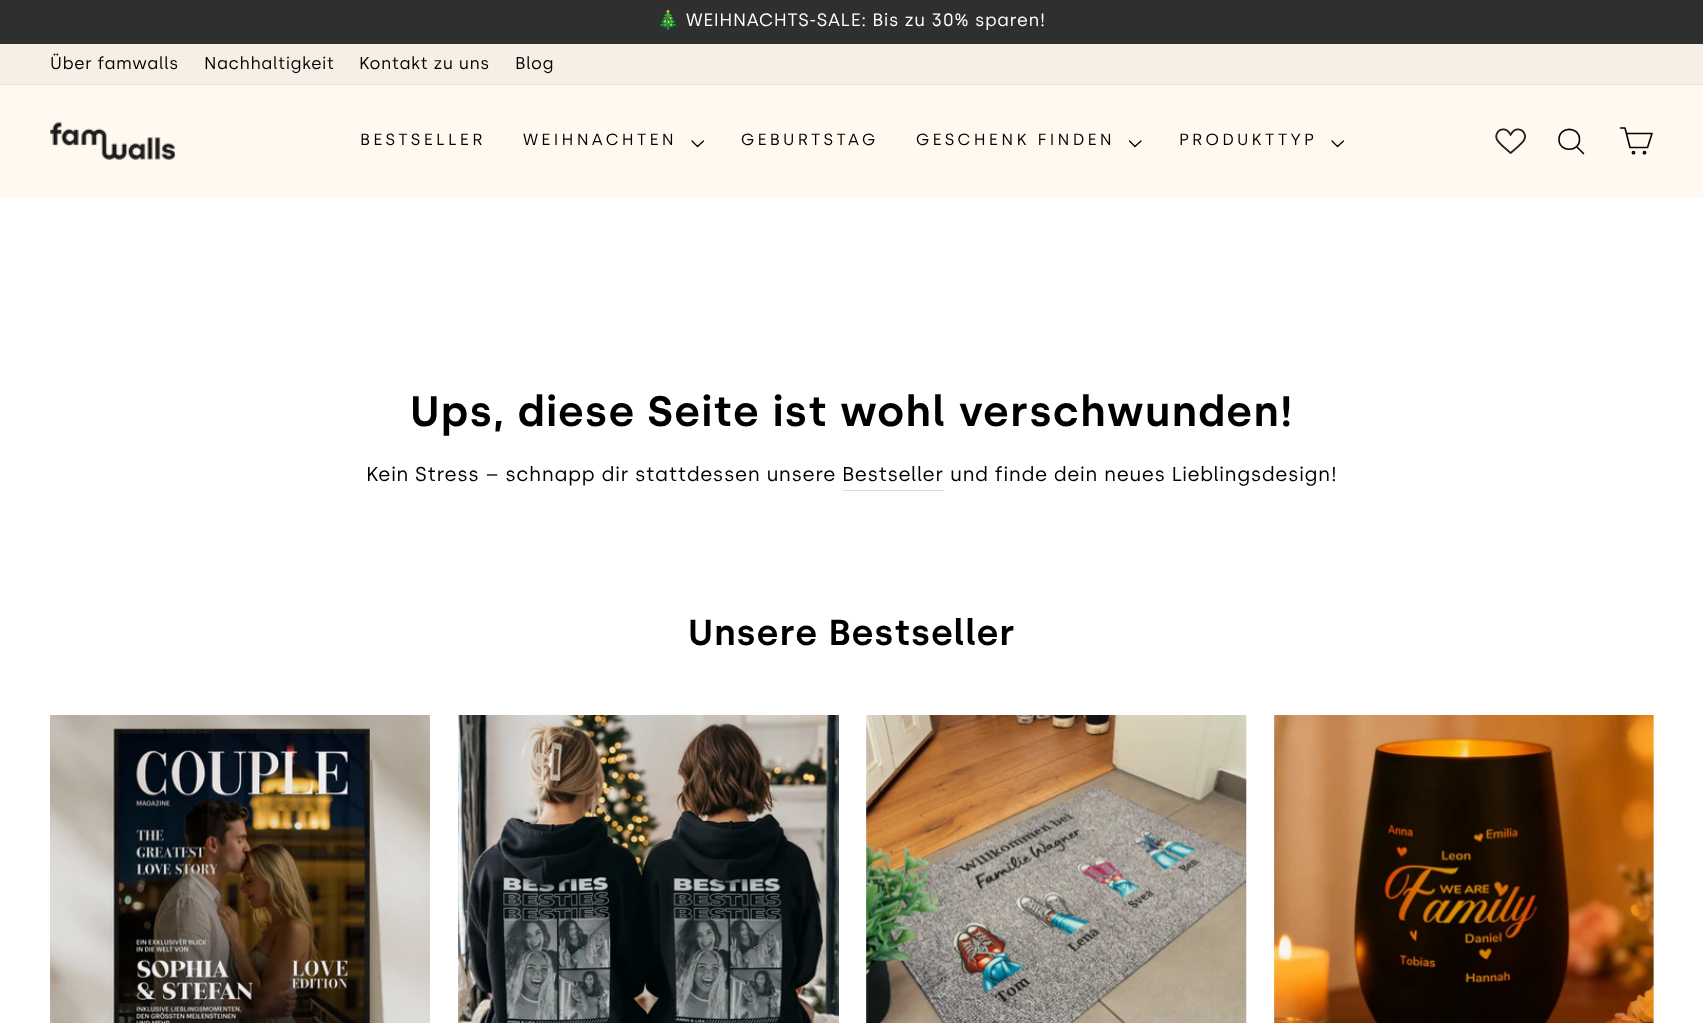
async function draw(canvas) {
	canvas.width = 1703;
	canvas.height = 1023;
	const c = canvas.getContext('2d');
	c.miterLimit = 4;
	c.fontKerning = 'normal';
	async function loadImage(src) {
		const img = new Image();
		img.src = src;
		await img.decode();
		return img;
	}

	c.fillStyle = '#fff';
	c.fillRect(0, 0, 1703, 1023);
	c.fillStyle = '#2f2f2f';
	c.fillRect(0, 0, 1703, 44);
	c.letterSpacing = '0.6px';
	c.font = '17.85px Noto Color Emoji';
	c.fillStyle = '#fff';
	c.fillText('🎄', 657, 26);
	c.font = '17.85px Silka';
	c.fillText('WEIHNACHTS-SALE: Bis zu 30% sparen!', 686, 26);
	c.fillStyle = '#f5efe5';
	c.fillRect(0, 44, 1703, 40);
	c.letterSpacing = '0.5px';
	c.font = '17px Silka';
	c.fillStyle = '#000';
	for (const [text, x, y] of [
		['Über famwalls', 50, 69],
		['Nachhaltigkeit', 204, 69],
		['Kontakt zu uns', 359, 69],
		['Blog', 515, 69],
	]) {
		c.fillText(text, x, y);
	}
	c.fillStyle = '#fff9f0';
	c.fillRect(0, 85, 1703, 113);
	c.fillStyle = '#e6e0d8';
	c.fillRect(0, 84, 1703, 1);
	c.drawImage(await loadImage('img1.png'), 50, 122, 125, 38);
	c.letterSpacing = '3.25px';
	c.font = '16.25px Silka';
	c.fillStyle = '#000';
	c.fillText('BESTSELLER', 360, 145);
	c.fillText('WEIHNACHTEN', 523, 145);
	c.beginPath();
	c.moveTo(692, 141);
	c.lineTo(697.5, 146.5);
	c.lineTo(703.5, 141);
	c.strokeStyle = '#000';
	c.lineWidth = 1.3;
	c.lineCap = 'round';
	c.lineJoin = 'round';
	c.stroke();
	c.fillText('GEBURTSTAG', 741, 145);
	c.fillText('GESCHENK FINDEN', 916, 145);
	c.beginPath();
	c.moveTo(1129.5, 141);
	c.lineTo(1135, 146.5);
	c.lineTo(1141, 141);
	c.stroke();
	c.fillText('PRODUKTTYP', 1179, 145);
	c.beginPath();
	c.moveTo(1332, 141);
	c.lineTo(1337.5, 146.5);
	c.lineTo(1343.5, 141);
	c.stroke();
	c.drawImage(await loadImage('img2.png'), 1495, 128, 31, 26);
	c.beginPath();
	c.moveTo(1579.5, 139.5);
	c.bezierCurveTo(1579.5, 152.5, 1559, 152.5, 1559, 139.5);
	c.bezierCurveTo(1559, 126, 1579.5, 126, 1579.5, 139.5);
	c.closePath();
	c.moveTo(1583.5, 153.5);
	c.lineTo(1576.5, 146.5);
	c.lineWidth = 1.6;
	c.stroke();
	c.beginPath();
	c.moveTo(1626.5, 133.5);
	c.lineTo(1652, 133.5);
	c.lineTo(1647.5, 147.5);
	c.lineTo(1630, 147.5);
	c.lineTo(1625, 128);
	c.lineTo(1620.5, 128);
	c.stroke();
	c.beginPath();
	c.arc(1633.5, 152.7, 1.1, 0, 2 * Math.PI);
	c.stroke();
	c.beginPath();
	c.arc(1644.5, 152.7, 1.1, 0, 2 * Math.PI);
	c.stroke();
	c.letterSpacing = '1.05px';
	c.font = '600 42.5px Silka';
	c.fillText('Ups, diese Seite ist wohl verschwunden!', 410, 426);
	c.letterSpacing = '0.5px';
	c.font = '20px Silka';
	c.fillText('Kein Stress – schnapp dir stattdessen unsere Bestseller', 366, 481);
	c.fillText('und finde dein neues Lieblingsdesign!', 950, 481);
	c.fillStyle = '#d9d9d9';
	c.fillRect(843, 490, 101, 1);
	c.letterSpacing = '0.9px';
	c.font = '600 36.1px Silka';
	c.fillStyle = '#000';
	c.fillText('Unsere Bestseller', 688, 645);
	c.drawImage(await loadImage('img3.png'), 50, 715, 380, 308);
	c.drawImage(await loadImage('img4.png'), 458, 715, 381, 308);
	c.drawImage(await loadImage('img5.png'), 866, 715, 381, 308);
	c.drawImage(await loadImage('img6.png'), 1274, 715, 380, 308);
}

draw(document.querySelector('canvas'));
